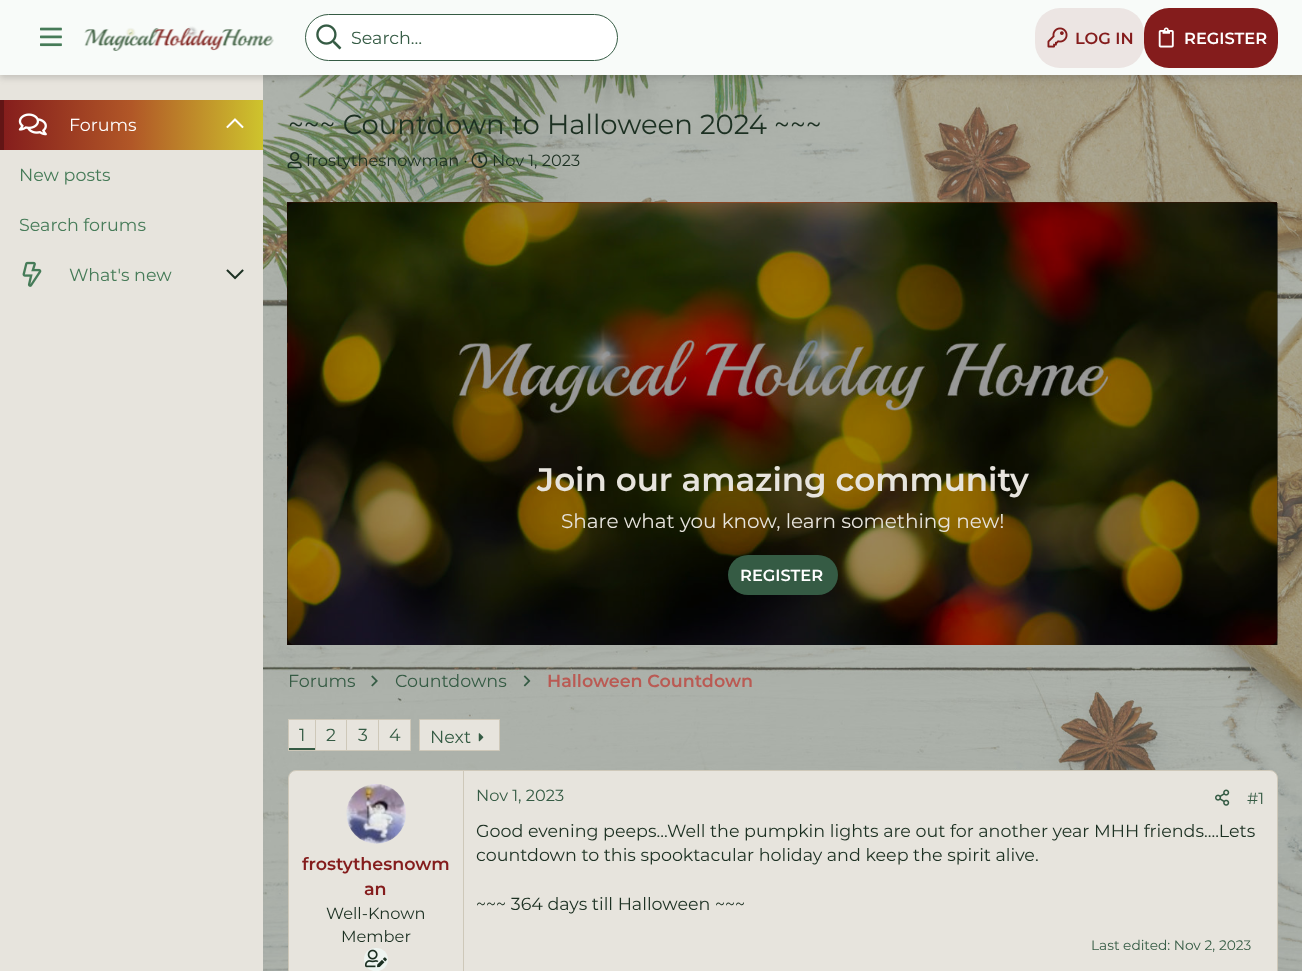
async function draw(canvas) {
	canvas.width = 1302;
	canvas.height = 971;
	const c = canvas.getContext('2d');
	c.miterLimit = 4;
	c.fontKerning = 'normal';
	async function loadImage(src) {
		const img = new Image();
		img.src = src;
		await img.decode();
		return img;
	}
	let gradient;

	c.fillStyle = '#778075';
	c.fillRect(0, 0, 1302, 971);
	c.fillStyle = '#e7e4dd';
	c.fillRect(0, 75, 263, 896);
	c.drawImage(await loadImage('img19.png'), 263, 75, 1039, 896);
	c.fillStyle = '#42424236';
	c.filter = 'blur(3px)';
	c.beginPath();
	c.rect(0, 3, 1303, 75);
	c.fill();
	c.filter = 'none';
	c.fillStyle = '#f8fbf9';
	c.fillRect(0, 0, 1302, 75);
	c.drawImage(await loadImage('img1.png'), 40, 27, 22, 20);
	c.drawImage(await loadImage('img2.png'), 84, 26, 190, 25);
	c.fillStyle = '#fff';
	c.beginPath();
	c.roundRect(305.5, 14.5, 312, 46, 23);
	c.fill();
	c.strokeStyle = '#355b44';
	c.stroke();
	c.drawImage(await loadImage('img3.png'), 316, 24, 26, 26);
	c.font = '17.5px Montserrat';
	c.fillStyle = '#355b44';
	c.fillText('Search…', 351, 44);
	c.fillStyle = '#ece5e3';
	c.beginPath();
	c.roundRect(1035, 8, 109, 60, 25);
	c.fill();
	c.drawImage(await loadImage('img4.png'), 1047, 27, 21, 21);
	c.font = '600 16.25px Montserrat';
	c.fillStyle = '#841c1c';
	c.fillText('LOG IN', 1075, 44);
	c.beginPath();
	c.roundRect(1144, 8, 134, 60, 25);
	c.fill();
	c.drawImage(await loadImage('img5.png'), 1158, 27, 16, 21);
	c.fillStyle = '#fff';
	c.fillText('REGISTER', 1184, 44);
	gradient = c.createLinearGradient(0, 125, 263, 125);
	gradient.addColorStop(0, '#841c1c');
	gradient.addColorStop(0.5, '#b15727');
	gradient.addColorStop(1, '#cec42d');
	c.fillStyle = gradient;
	c.fillRect(4, 100, 259, 50);
	c.fillStyle = '#621515';
	c.fillRect(0, 100, 4, 50);
	c.drawImage(await loadImage('img6.png'), 18, 113, 29, 23);
	c.font = '17.5px Montserrat';
	c.fillStyle = '#fff';
	c.fillText('Forums', 69, 131);
	c.drawImage(await loadImage('img7.png'), 226, 118, 18, 11);
	c.fillStyle = '#467b58';
	c.fillText('New posts', 19, 181);
	c.fillText('Search forums', 19, 231);
	c.drawImage(await loadImage('img8.png'), 22, 261, 20, 26);
	c.fillText('What\'s new', 69, 281);
	c.drawImage(await loadImage('img9.png'), 226, 269, 18, 11);
	c.font = '27.5px Montserrat';
	c.fillStyle = '#1c3022';
	c.fillText('~~~ Countdown to Halloween 2024 ~~~', 288, 134);
	c.drawImage(await loadImage('img10.png'), 287, 152, 15, 17);
	c.font = '16.25px Montserrat';
	c.fillText('frostythesnowman ·', 306, 166);
	c.drawImage(await loadImage('img11.png'), 471, 152, 17, 16);
	c.fillText('Nov 1, 2023', 492, 166);
	c.drawImage(await loadImage('img20.png'), 287, 202, 990, 443);
	c.drawImage(await loadImage('img12.png'), 287, 202, 991, 443);
	c.fillStyle = '#00000066';
	c.fillRect(288, 203, 990, 442);
	c.font = '600 32.5px Montserrat';
	c.fillStyle = '#e7e4dd';
	c.fillText('Join our amazing community', 537, 491);
	c.font = '20px Montserrat';
	c.fillText('Share what you know, learn something new!', 561, 528);
	c.fillStyle = '#355b44';
	c.beginPath();
	c.roundRect(728, 555, 110, 40, 20);
	c.fill();
	c.font = '600 16.25px Montserrat';
	c.fillStyle = '#fff';
	c.fillText('REGISTER', 740, 581);
	c.font = '17.5px Montserrat';
	c.fillStyle = '#355b44';
	c.fillText('Forums', 288, 687);
	c.drawImage(await loadImage('img13.png'), 371, 675, 7, 12);
	c.fillText('Countdowns', 395, 687);
	c.drawImage(await loadImage('img14.png'), 523, 675, 8, 12);
	c.font = '600 17.5px Montserrat';
	c.fillStyle = '#ba5a53';
	c.fillText('Halloween Countdown', 547, 687);
	for (const [x, y, w, h, color] of [
		[289, 720, 26, 28, '#e7e4dd'],
		[289, 748, 26, 2, '#355b44'],
		[288, 719, 90, 1, '#cec8b9'],
		[288, 750, 90, 1, '#cec8b9'],
		[288, 719, 1, 32, '#cec8b9'],
	]) {
		c.fillStyle = color;
		c.fillRect(x, y, w, h);
	}
	c.font = '17.5px Montserrat';
	c.fillStyle = '#355b44';
	c.fillText('1', 299, 741);
	c.fillStyle = '#e7e4dd';
	c.fillRect(316, 720, 30, 30);
	c.fillStyle = '#cec8b9';
	c.fillRect(315, 719, 1, 32);
	c.fillStyle = '#355b44';
	c.fillText('2', 326, 741);
	c.fillStyle = '#e7e4dd';
	c.fillRect(347, 720, 31, 30);
	c.fillStyle = '#cec8b9';
	c.fillRect(346, 719, 1, 32);
	c.fillStyle = '#355b44';
	c.fillText('3', 358, 741);
	c.fillStyle = '#e7e4dd';
	c.beginPath();
	c.rect(378.5, 719.5, 32, 31);
	c.fill();
	c.strokeStyle = '#cec8b9';
	c.stroke();
	c.fillStyle = '#355b44';
	c.fillText('4', 389, 741);
	c.fillStyle = '#e7e4dd';
	c.beginPath();
	c.rect(419.5, 719.5, 80, 31);
	c.fill();
	c.stroke();
	c.fillStyle = '#355b44';
	c.fillText('Next', 430, 743);
	c.drawImage(await loadImage('img15.png'), 478, 733, 6, 9);
	c.fillStyle = '#e7e4dd';
	c.beginPath();
	c.roundRect(288.5, 770.5, 989, 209, 7.5);
	c.fill();
	c.stroke();
	c.fillStyle = '#cec8b9';
	c.fillRect(463, 771, 1, 200);
	c.drawImage(await loadImage('img16.png'), 346, 784, 60, 60);
	c.font = '600 17.5px Montserrat';
	c.fillStyle = '#841c1c';
	c.fillText('frostythesnowm', 302, 870);
	c.fillText('an', 364, 895);
	c.font = '16.25px Montserrat';
	c.fillStyle = '#1c3022';
	c.fillText('Well-Known', 326, 919);
	c.fillText('Member', 341, 942);
	c.fillStyle = '#eef5f1';
	c.beginPath();
	c.roundRect(364, 948, 24, 23, 11.5);
	c.fill();
	c.drawImage(await loadImage('img17.png'), 365, 949, 22, 19);
	c.fillStyle = '#355b44';
	c.fillText('Nov 1, 2023', 476, 801);
	c.drawImage(await loadImage('img18.png'), 1215, 789, 15, 17);
	c.fillText('#1', 1247, 804);
	c.font = '17.5px Montserrat';
	c.fillStyle = '#1c3022';
	for (const [text, x, y] of [
		['Good evening peeps...Well the pumpkin lights are out for another year MHH friends....Lets', 476, 837],
		['countdown to this spooktacular holiday and keep the spirit alive.', 476, 861],
		['~~~ 364 days till Halloween ~~~', 476, 910],
	]) {
		c.fillText(text, x, y);
	}
	c.font = '13.75px Montserrat';
	c.fillStyle = '#355b44';
	c.fillText('Last edited: Nov 2, 2023', 1091, 950);
}

draw(document.querySelector('canvas'));
